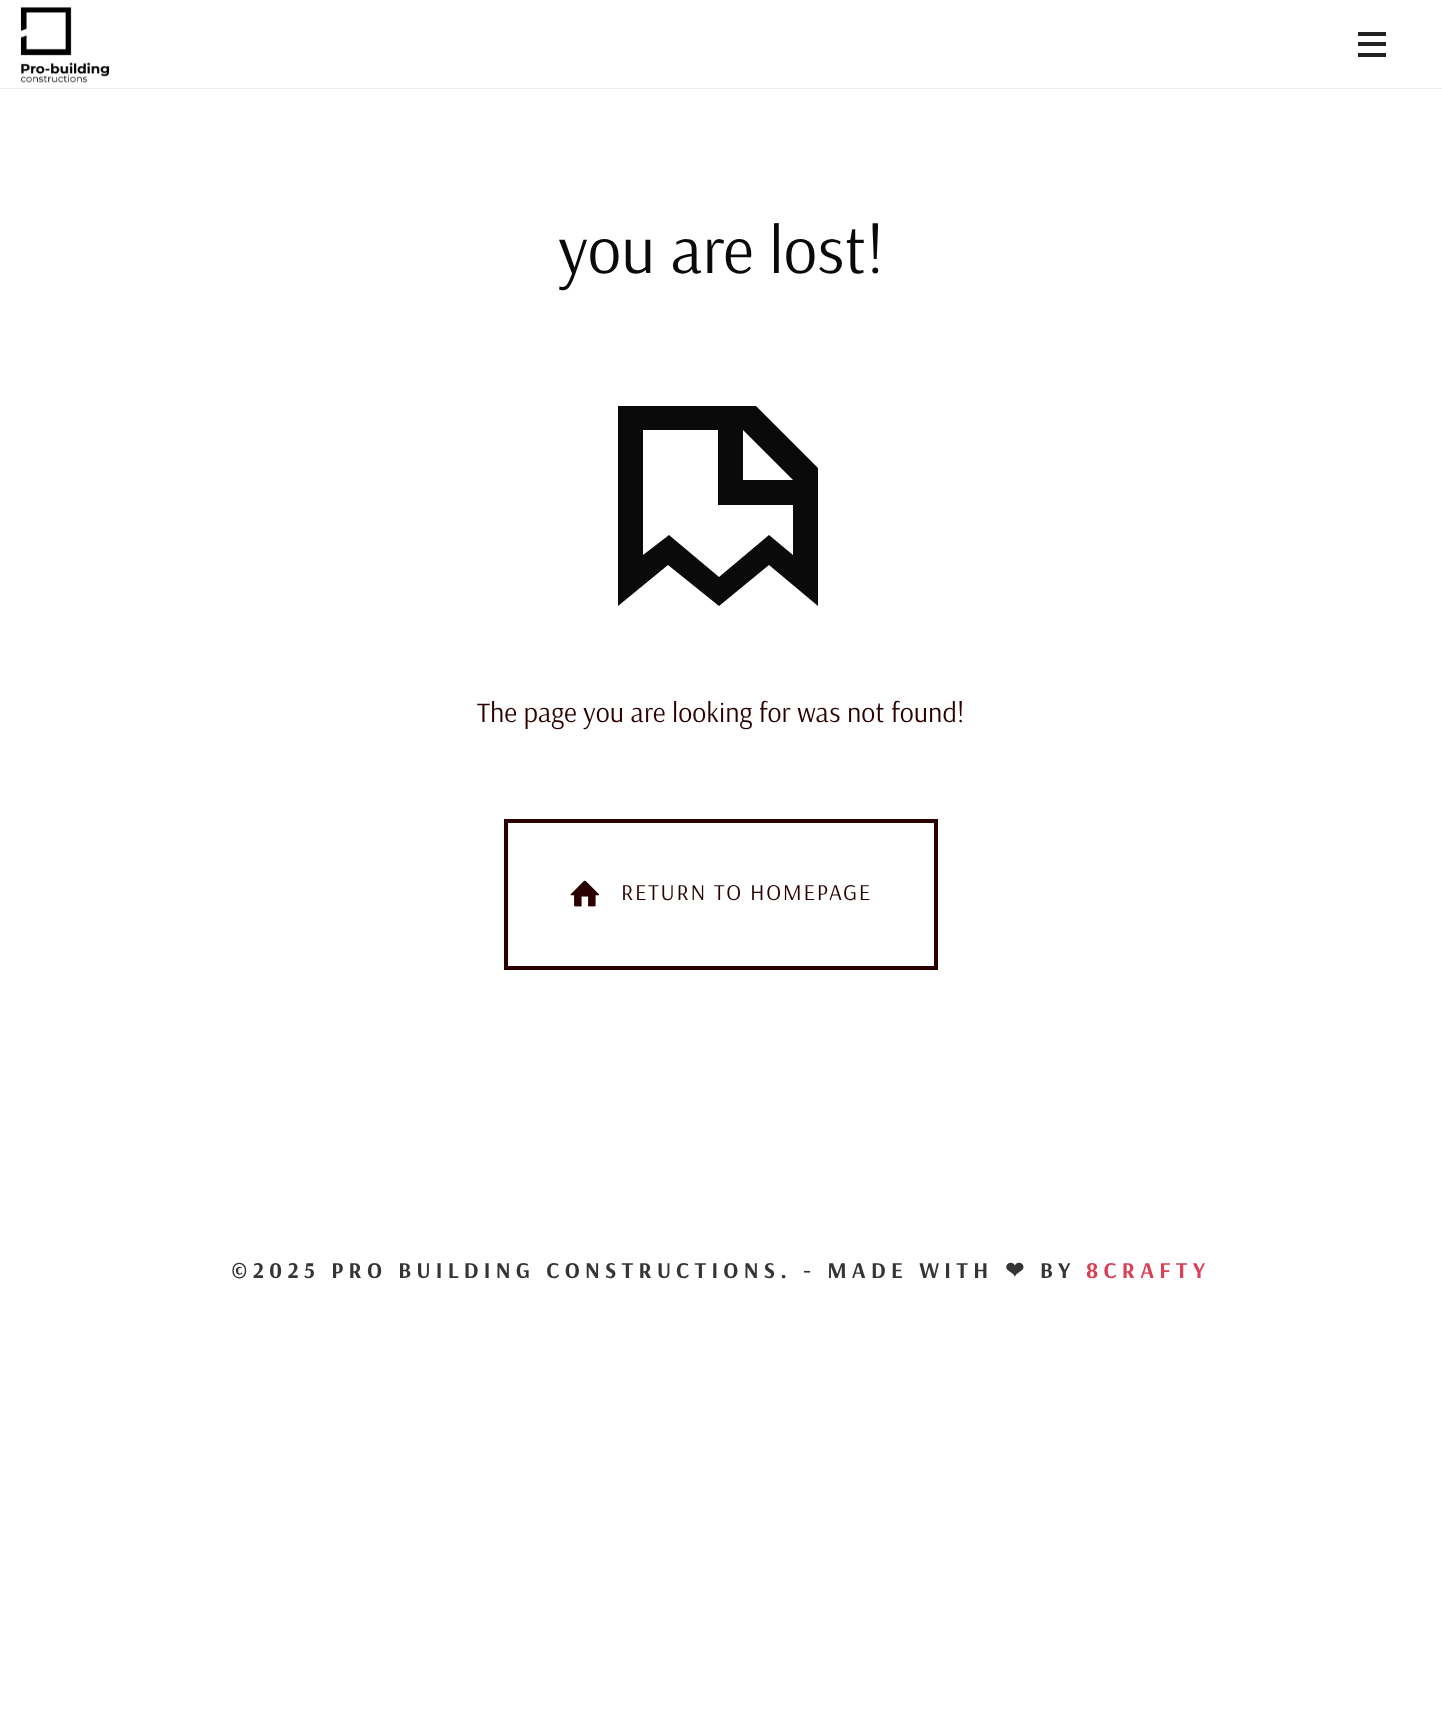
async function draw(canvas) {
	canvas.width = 1442;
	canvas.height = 1725;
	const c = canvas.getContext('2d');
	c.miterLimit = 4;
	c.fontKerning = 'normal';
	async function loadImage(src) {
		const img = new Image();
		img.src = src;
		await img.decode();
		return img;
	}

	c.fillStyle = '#fff';
	c.fillRect(0, 0, 1442, 1725);
	c.drawImage(await loadImage('img1.png'), 20, 7, 90, 76);
	for (const [x, y, w, h, color] of [
		[1358, 42, 28, 4, '#222'],
		[1358, 32, 28, 4, '#222'],
		[1358, 53, 28, 4, '#222'],
		[0, 88, 1442, 1, '#eee'],
	]) {
		c.fillStyle = color;
		c.fillRect(x, y, w, h);
	}
	c.font = '66.5px Arsenal';
	c.fillStyle = '#0a0a0a';
	c.fillText('you are lost!', 558, 273);
	c.beginPath();
	c.moveTo(756, 406);
	c.lineTo(818, 468);
	c.lineTo(818, 606);
	c.lineTo(769, 565);
	c.lineTo(719, 606);
	c.lineTo(668, 565);
	c.lineTo(618, 606);
	c.lineTo(618, 406);
	c.closePath();
	c.moveTo(793, 555);
	c.lineTo(793, 505);
	c.lineTo(718, 505);
	c.lineTo(718, 430);
	c.lineTo(643, 430);
	c.lineTo(643, 555);
	c.lineTo(669, 535);
	c.lineTo(719, 577);
	c.lineTo(769, 535);
	c.closePath();
	c.moveTo(743, 480);
	c.lineTo(793, 480);
	c.lineTo(743, 430);
	c.closePath();
	c.fill();
	c.font = '28px Arsenal';
	c.fillStyle = '#2b0000';
	c.fillText('The page you are looking for was not found!', 477, 722);
	c.strokeStyle = '#2b0000';
	c.lineWidth = 4;
	c.strokeRect(506, 821, 430, 147);
	c.drawImage(await loadImage('img2.png'), 570, 880, 30, 27);
	c.letterSpacing = '1.75px';
	c.font = '22.75px Arsenal';
	c.fillText('RETURN TO HOMEPAGE', 621, 900);
	c.letterSpacing = '5.25px';
	c.font = 'bold 22.75px Arsenal';
	c.fillStyle = '#353535';
	c.fillText('©2025 PRO BUILDING CONSTRUCTIONS. - MADE WITH', 231, 1278);
	c.font = 'bold 22.75px DejaVu Sans';
	c.fillText('❤', 1005, 1278);
	c.font = 'bold 22.75px Arsenal';
	c.fillText('BY', 1040, 1278);
	c.fillStyle = '#d84156';
	c.fillText('8CRAFTY', 1086, 1278);
}

draw(document.querySelector('canvas'));
